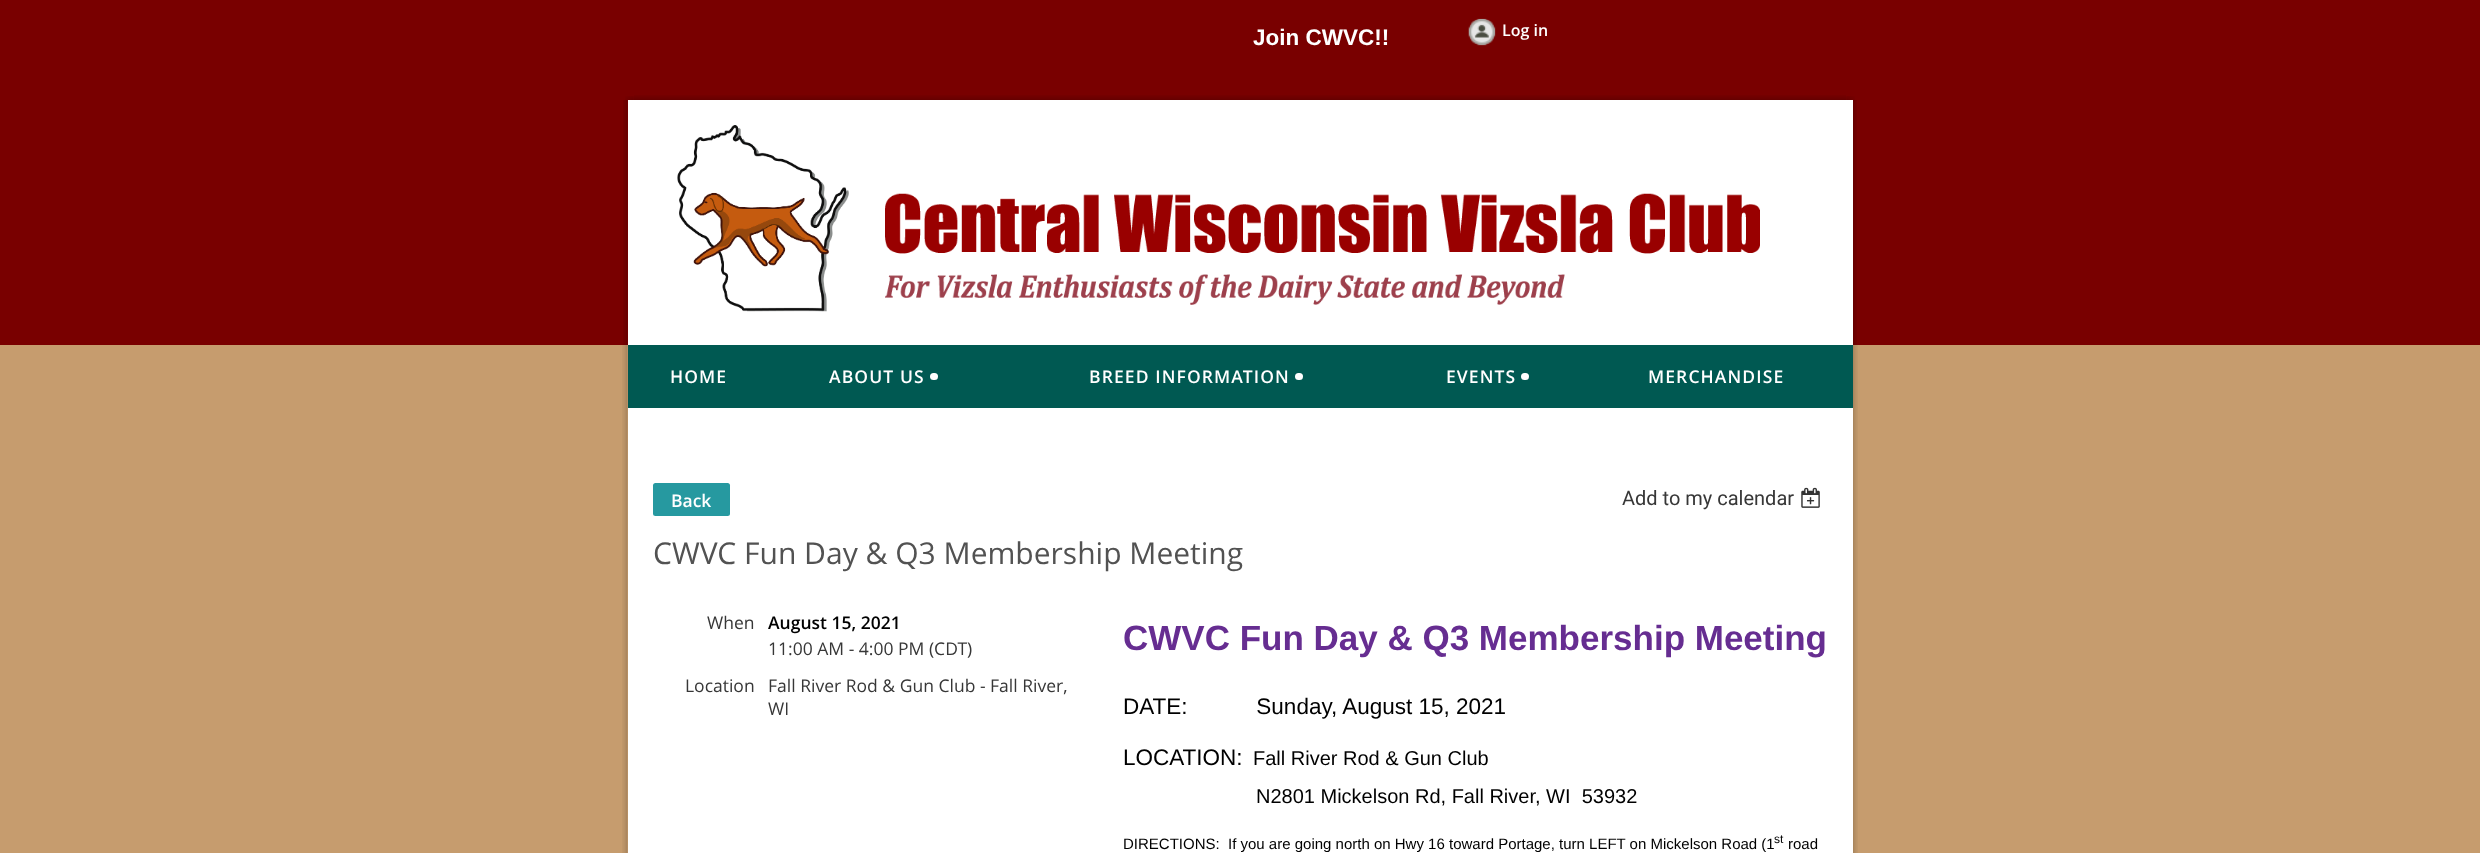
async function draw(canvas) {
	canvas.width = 2480;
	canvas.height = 853;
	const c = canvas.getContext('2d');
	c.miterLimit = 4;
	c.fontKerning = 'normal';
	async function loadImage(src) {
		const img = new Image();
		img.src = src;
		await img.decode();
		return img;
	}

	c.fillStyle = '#c69c6e';
	c.fillRect(0, 0, 2480, 853);
	c.fillStyle = '#790000';
	c.fillRect(0, 0, 2480, 345);
	c.font = 'bold 22.5px Liberation Sans';
	c.fillStyle = '#fff';
	c.fillText('Join CWVC!!', 1253, 45);
	c.drawImage(await loadImage('img1.png'), 1468, 18, 28, 28);
	c.font = '600 16px Open Sans';
	c.fillText('Log in', 1502, 36);
	c.drawImage(await loadImage('img2.png'), 625, 96, 1230, 4);
	c.drawImage(await loadImage('img3.png'), 634, 95, 1212, 5);
	c.drawImage(await loadImage('img4.png'), 623, 100, 1234, 245);
	c.fillRect(628, 100, 1225, 245);
	c.drawImage(await loadImage('img5.png'), 677, 125, 172, 187);
	c.drawImage(await loadImage('img6.png'), 885, 193, 875, 112);
	c.drawImage(await loadImage('img7.png'), 622, 345, 1236, 63);
	c.drawImage(await loadImage('img8.png'), 622, 407, 1236, 446);
	c.fillStyle = '#005952';
	c.fillRect(628, 345, 1225, 63);
	c.letterSpacing = '1.1px';
	c.font = '600 17.5px Open Sans';
	c.fillStyle = '#fff';
	c.fillText('HOME', 670, 383);
	c.fillText('ABOUT US', 829, 383);
	c.beginPath();
	c.roundRect(930, 373, 8, 7, 3.5);
	c.fill();
	c.fillText('BREED INFORMATION', 1089, 383);
	c.beginPath();
	c.roundRect(1295, 373, 8, 7, 3.5);
	c.fill();
	c.fillText('EVENTS', 1446, 383);
	c.beginPath();
	c.roundRect(1521, 373, 8, 7, 3.5);
	c.fill();
	c.fillText('MERCHANDISE', 1648, 383);
	c.fillRect(628, 408, 1225, 445);
	c.fillStyle = '#2699a0';
	c.beginPath();
	c.roundRect(653, 483, 77, 33, 2.5);
	c.fill();
	c.letterSpacing = '0px';
	c.fillStyle = '#fff';
	c.fillText('Back', 671, 507);
	c.font = '20px Roboto';
	c.fillStyle = '#373737';
	c.fillText('Add to my calendar', 1622, 505);
	c.drawImage(await loadImage('img9.png'), 1801, 487, 19, 21);
	c.font = '30px Open Sans';
	c.fillStyle = '#525252';
	c.fillText('CWVC Fun Day & Q3 Membership Meeting', 653, 564);
	c.font = '17.5px Open Sans';
	c.fillStyle = '#373737';
	c.fillText('When', 707, 629);
	c.font = '600 17.5px Open Sans';
	c.fillStyle = '#000';
	c.fillText('August 15, 2021', 768, 629);
	c.font = '17.5px Open Sans';
	c.fillStyle = '#373737';
	for (const [text, x, y] of [
		['11:00 AM - 4:00 PM (CDT)', 768, 655],
		['Location', 685, 692],
		['Fall River Rod & Gun Club - Fall River,', 768, 692],
		['WI', 768, 715],
	]) {
		c.fillText(text, x, y);
	}
	c.font = 'bold 35px Liberation Sans';
	c.fillStyle = '#662d91';
	c.fillText('CWVC Fun Day & Q3 Membership Meeting', 1123, 650);
	c.font = '22.5px Liberation Sans';
	c.fillStyle = '#000';
	c.fillText('DATE:           Sunday, August 15, 2021', 1123, 714);
	c.fillText('LOCATION:', 1123, 765);
	c.font = '20px Liberation Sans';
	c.fillText('Fall River Rod & Gun Club', 1253, 765);
	c.fillText('N2801 Mickelson Rd, Fall River, WI  53932', 1256, 803);
	c.font = '15px Liberation Sans';
	c.fillText('DIRECTIONS:  If you are going north on Hwy 16 toward Portage, turn LEFT on Mickelson Road (1', 1123, 849);
	c.font = '12px Liberation Sans';
	c.fillText('st', 1774, 843);
	c.font = '15px Liberation Sans';
	c.fillText('road', 1788, 849);
}

draw(document.querySelector('canvas'));
